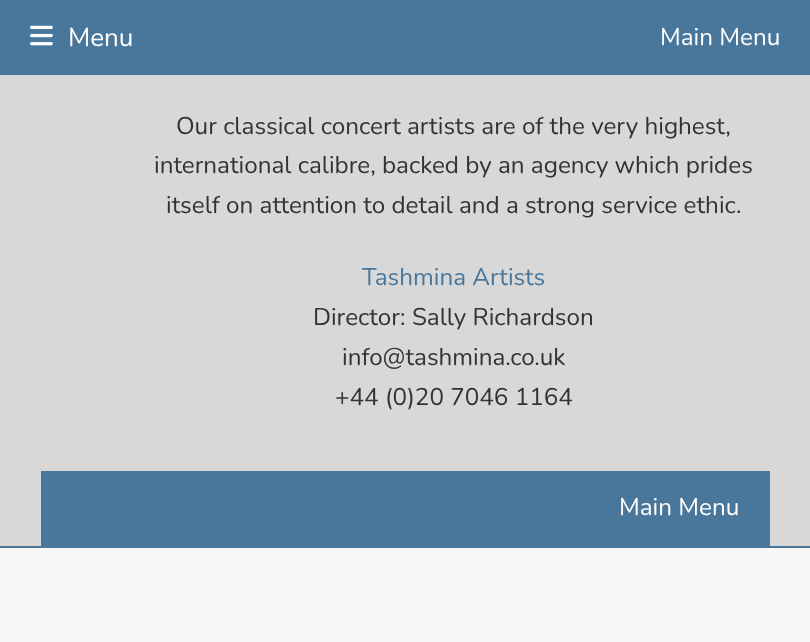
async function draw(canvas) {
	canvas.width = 810;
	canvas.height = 642;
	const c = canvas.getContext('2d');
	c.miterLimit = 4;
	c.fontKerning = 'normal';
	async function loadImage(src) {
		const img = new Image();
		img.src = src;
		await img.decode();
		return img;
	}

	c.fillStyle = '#f7f7f7';
	c.fillRect(0, 0, 810, 642);
	c.fillStyle = '#49779c';
	c.fillRect(0, 0, 810, 75);
	c.drawImage(await loadImage('img1.png'), 30, 25, 23, 21);
	c.font = '26px Nunito';
	c.fillStyle = '#fff';
	c.fillText('Menu', 68, 46);
	c.font = '24.25px Nunito';
	c.fillText('Main Menu', 660, 45);
	c.fillStyle = '#d8d8d8';
	c.fillRect(0, 75, 810, 471);
	c.fillStyle = '#49779c';
	c.fillRect(0, 546, 810, 2);
	c.fillStyle = '#333';
	for (const [text, x, y] of [
		['Our classical concert artists are of the very highest,', 176, 134],
		['international calibre, backed by an agency which prides', 154, 173],
		['itself on attention to detail and a strong service ethic.', 166, 213],
	]) {
		c.fillText(text, x, y);
	}
	c.fillStyle = '#49779c';
	c.fillText('Tashmina Artists', 362, 285);
	c.fillStyle = '#333';
	for (const [text, x, y] of [
		['Director: Sally Richardson', 313, 325],
		['info@tashmina.co.uk', 342, 365],
		['+44 (0)20 7046 1164', 335, 405],
	]) {
		c.fillText(text, x, y);
	}
	c.fillStyle = '#49779c';
	c.fillRect(41, 471, 729, 75);
	c.fillStyle = '#fff';
	c.fillText('Main Menu', 619, 515);
}

draw(document.querySelector('canvas'));
